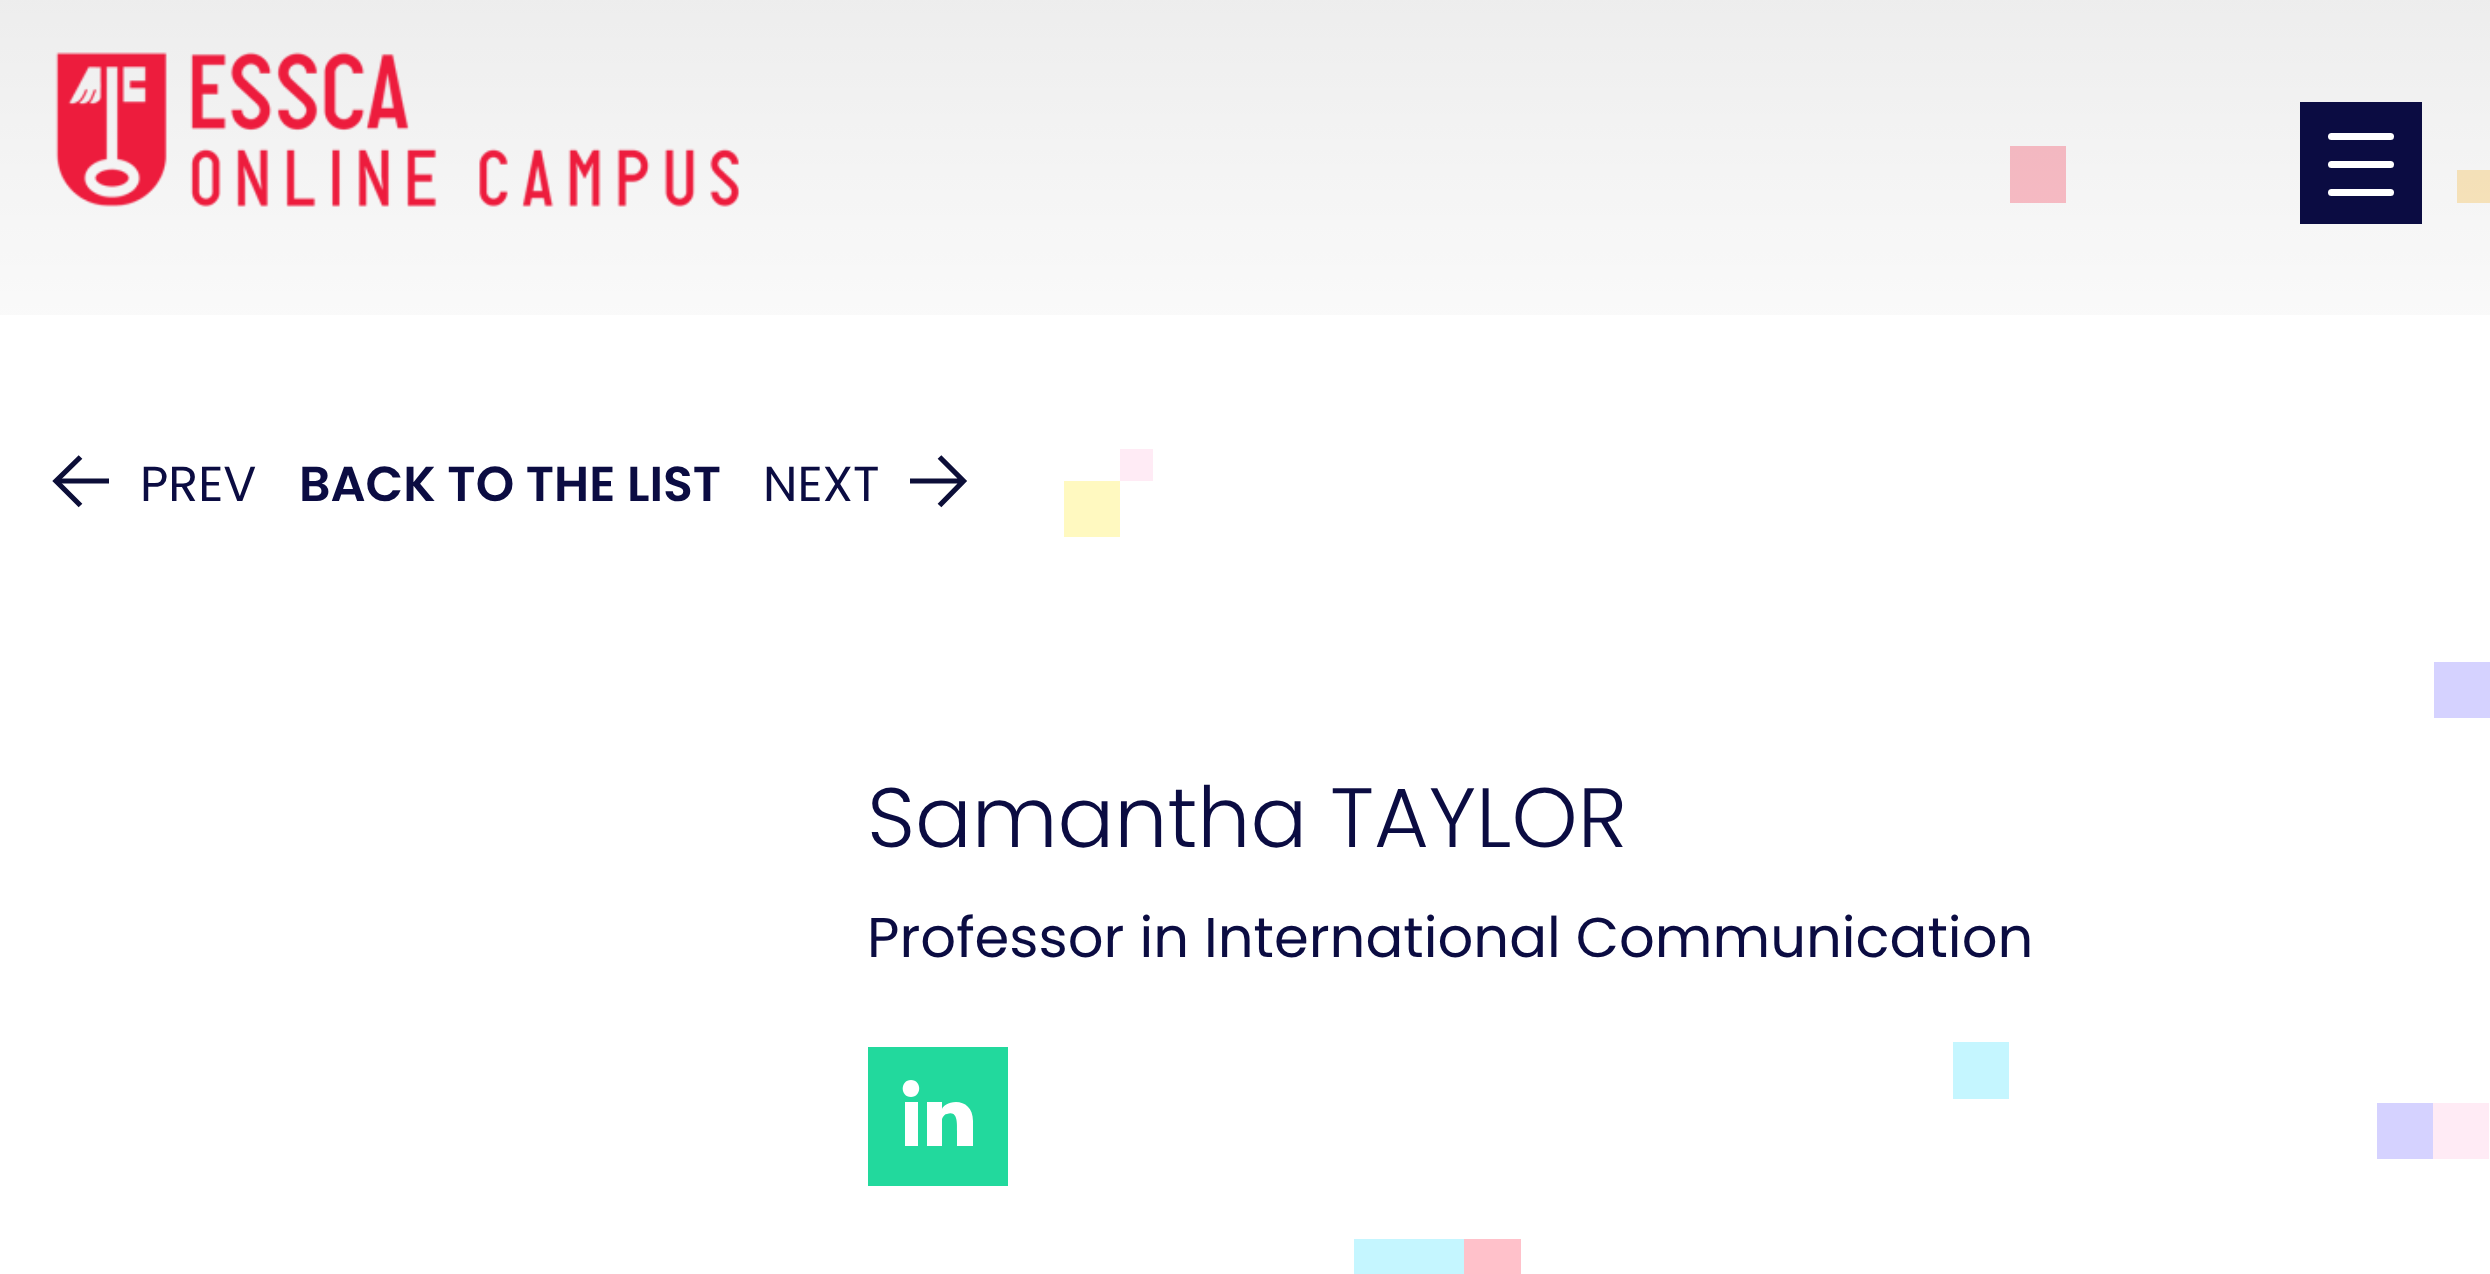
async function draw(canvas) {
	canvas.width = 2490;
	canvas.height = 1274;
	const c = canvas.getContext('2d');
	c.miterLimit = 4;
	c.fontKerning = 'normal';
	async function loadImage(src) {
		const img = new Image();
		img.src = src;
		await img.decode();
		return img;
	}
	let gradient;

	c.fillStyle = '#fff';
	c.fillRect(0, 0, 2490, 1274);
	c.fillStyle = '#ffc1ca';
	c.fillRect(2010, 146, 56, 57);
	c.fillStyle = '#ffeac0';
	c.fillRect(2457, 170, 33, 33);
	gradient = c.createLinearGradient(0, 455, 0, 0);
	gradient.addColorStop(0, '#03030300');
	gradient.addColorStop(1, '#03030312');
	c.fillStyle = gradient;
	c.fillRect(0, 0, 2490, 315);
	c.drawImage(await loadImage('img1.png'), 55, 52, 685, 155);
	c.fillStyle = '#0b0c42';
	c.fillRect(2300, 102, 122, 122);
	c.fillStyle = '#fff';
	c.beginPath();
	c.roundRect(2328, 161, 66, 7, 3.5);
	c.fill();
	c.beginPath();
	c.roundRect(2328, 133, 66, 7, 3.5);
	c.fill();
	c.beginPath();
	c.roundRect(2328, 189, 66, 7, 3.5);
	c.fill();
	for (const [x, y, w, h, color] of [
		[2377, 1103, 56, 56, '#d5d2ff'],
		[2433, 1103, 56, 56, '#ffebf5'],
		[1064, 481, 56, 56, '#fff9c0'],
		[1120, 449, 33, 32, '#ffebf5'],
	]) {
		c.fillStyle = color;
		c.fillRect(x, y, w, h);
	}
	c.fillStyle = '#c5f6ff';
	c.beginPath();
	c.moveTo(1953, 1042);
	c.lineTo(2009, 1042);
	c.lineTo(2009, 1099);
	c.lineTo(1953, 1099);
	c.closePath();
	c.moveTo(1354, 1239);
	c.lineTo(1411, 1239);
	c.lineTo(1411, 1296);
	c.lineTo(1354, 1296);
	c.closePath();
	c.fill();
	for (const [x, y, w, h, color] of [
		[1411, 1239, 53, 35, '#c5f6ff'],
		[1464, 1239, 57, 35, '#ffc1ca'],
		[2434, 662, 56, 56, '#d5d2ff'],
	]) {
		c.fillStyle = color;
		c.fillRect(x, y, w, h);
	}
	c.beginPath();
	c.moveTo(80.5, 505.5);
	c.lineTo(56, 481);
	c.lineTo(80.5, 457);
	c.strokeStyle = '#0c0e38';
	c.lineWidth = 5.2;
	c.stroke();
	c.save();
	c.beginPath();
	c.rect(53, 455, 56, 53);
	c.clip();
	c.beginPath();
	c.moveTo(110, 481);
	c.lineTo(58.5, 481);
	c.stroke();
	c.restore();
	c.font = '49px Poppins';
	c.fillStyle = '#0b0c42';
	c.fillText('PREV', 140, 501);
	c.font = '600 49px Poppins';
	c.fillText('BACK TO THE LIST', 299, 501);
	c.font = '49px Poppins';
	c.fillText('NEXT', 763, 501);
	c.beginPath();
	c.moveTo(939.5, 457);
	c.lineTo(963.5, 481);
	c.lineTo(939.5, 505.5);
	c.moveTo(910, 481);
	c.lineTo(961.5, 481);
	c.stroke();
	c.font = '300 84px Poppins';
	c.fillText('Samantha TAYLOR', 867, 847);
	c.font = '56px Poppins';
	c.fillText('Professor in International Communication', 867, 957);
	c.fillStyle = '#22d99d';
	c.fillRect(868, 1047, 140, 139);
	c.fillStyle = '#fff';
	c.beginPath();
	c.moveTo(918, 1146);
	c.lineTo(905, 1146);
	c.lineTo(905, 1102);
	c.lineTo(918, 1102);
	c.closePath();
	c.moveTo(911, 1097);
	c.bezierCurveTo(900, 1097, 900, 1080, 911, 1080);
	c.bezierCurveTo(922, 1080, 922, 1097, 911, 1097);
	c.closePath();
	c.moveTo(973, 1146);
	c.lineTo(957, 1146);
	c.lineTo(957, 1131);
	c.bezierCurveTo(957, 1124, 958, 1110, 947, 1114);
	c.bezierCurveTo(945, 1114, 943, 1116, 942, 1119);
	c.lineTo(942, 1146);
	c.lineTo(927, 1146);
	c.lineTo(927, 1102);
	c.lineTo(942, 1102);
	c.lineTo(942, 1109);
	c.bezierCurveTo(943, 1106, 948, 1102, 956, 1102);
	c.bezierCurveTo(965, 1102, 973, 1108, 973, 1121);
	c.closePath();
	c.fill();
}

draw(document.querySelector('canvas'));
